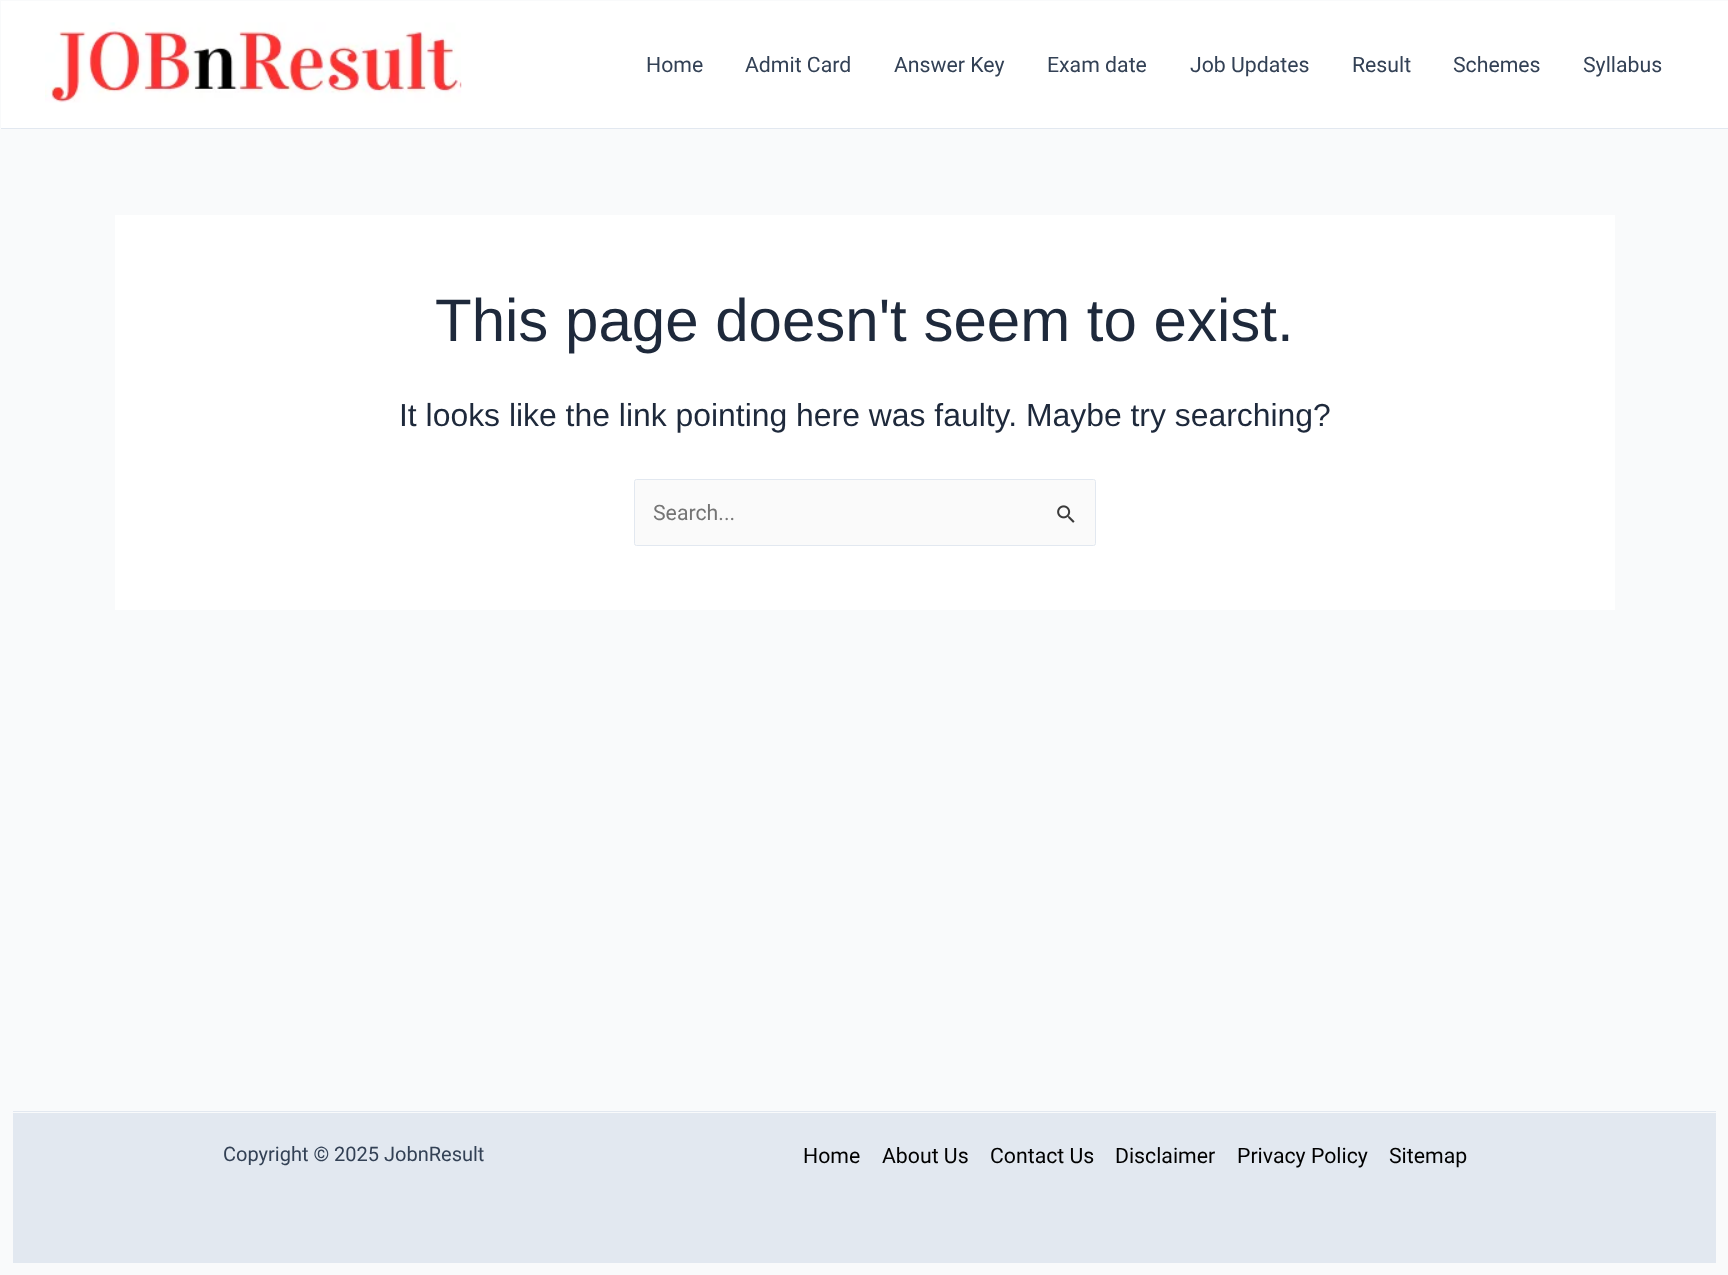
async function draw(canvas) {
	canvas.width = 1728;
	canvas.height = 1275;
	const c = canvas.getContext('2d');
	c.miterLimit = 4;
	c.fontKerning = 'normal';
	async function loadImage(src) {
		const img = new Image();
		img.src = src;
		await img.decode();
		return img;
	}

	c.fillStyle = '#f9fafb';
	c.fillRect(0, 0, 1728, 1275);
	c.fillStyle = '#fff';
	c.fillRect(1, 1, 1727, 127);
	c.fillStyle = '#e2e8f0';
	c.fillRect(1, 128, 1727, 1);
	c.drawImage(await loadImage('img1.png'), 45, 22, 417, 81);
	c.font = '21.25px Roboto';
	c.fillStyle = '#334155';
	for (const [text, x, y] of [
		['Home', 646, 72],
		['Admit Card', 745, 72],
		['Answer Key', 894, 72],
		['Exam date', 1047, 72],
		['Job Updates', 1190, 72],
		['Result', 1352, 72],
		['Schemes', 1453, 72],
		['Syllabus', 1583, 72],
	]) {
		c.fillText(text, x, y);
	}
	c.fillStyle = '#fff';
	c.fillRect(115, 215, 1500, 395);
	c.font = '60px Liberation Sans';
	c.fillStyle = '#1e293b';
	c.fillText('This page doesn\'t seem to exist.', 435, 341);
	c.font = '31.9px Liberation Sans';
	c.fillText('It looks like the link pointing here was faulty. Maybe try searching?', 399, 426);
	c.fillStyle = '#fafafa';
	c.beginPath();
	c.roundRect(634.5, 479.5, 461, 66, 2);
	c.fill();
	c.strokeStyle = '#e2e8f0';
	c.stroke();
	c.font = '21.25px Roboto';
	c.fillStyle = '#757575';
	c.fillText('Search...', 653, 520);
	c.drawImage(await loadImage('img2.png'), 1057, 505, 18, 18);
	c.fillStyle = '#e2e8f0';
	c.fillRect(13, 1113, 1703, 150);
	c.fillRect(13, 1111, 1703, 1);
	c.font = '20px Roboto';
	c.fillStyle = '#334155';
	c.fillText('Copyright © 2025 JobnResult', 223, 1161);
	c.font = '21.25px Roboto';
	c.fillStyle = '#010101';
	for (const [text, x, y] of [
		['Home', 803, 1163],
		['About Us', 882, 1163],
		['Contact Us', 990, 1163],
		['Disclaimer', 1115, 1163],
		['Privacy Policy', 1237, 1163],
		['Sitemap', 1389, 1163],
	]) {
		c.fillText(text, x, y);
	}
}

draw(document.querySelector('canvas'));
